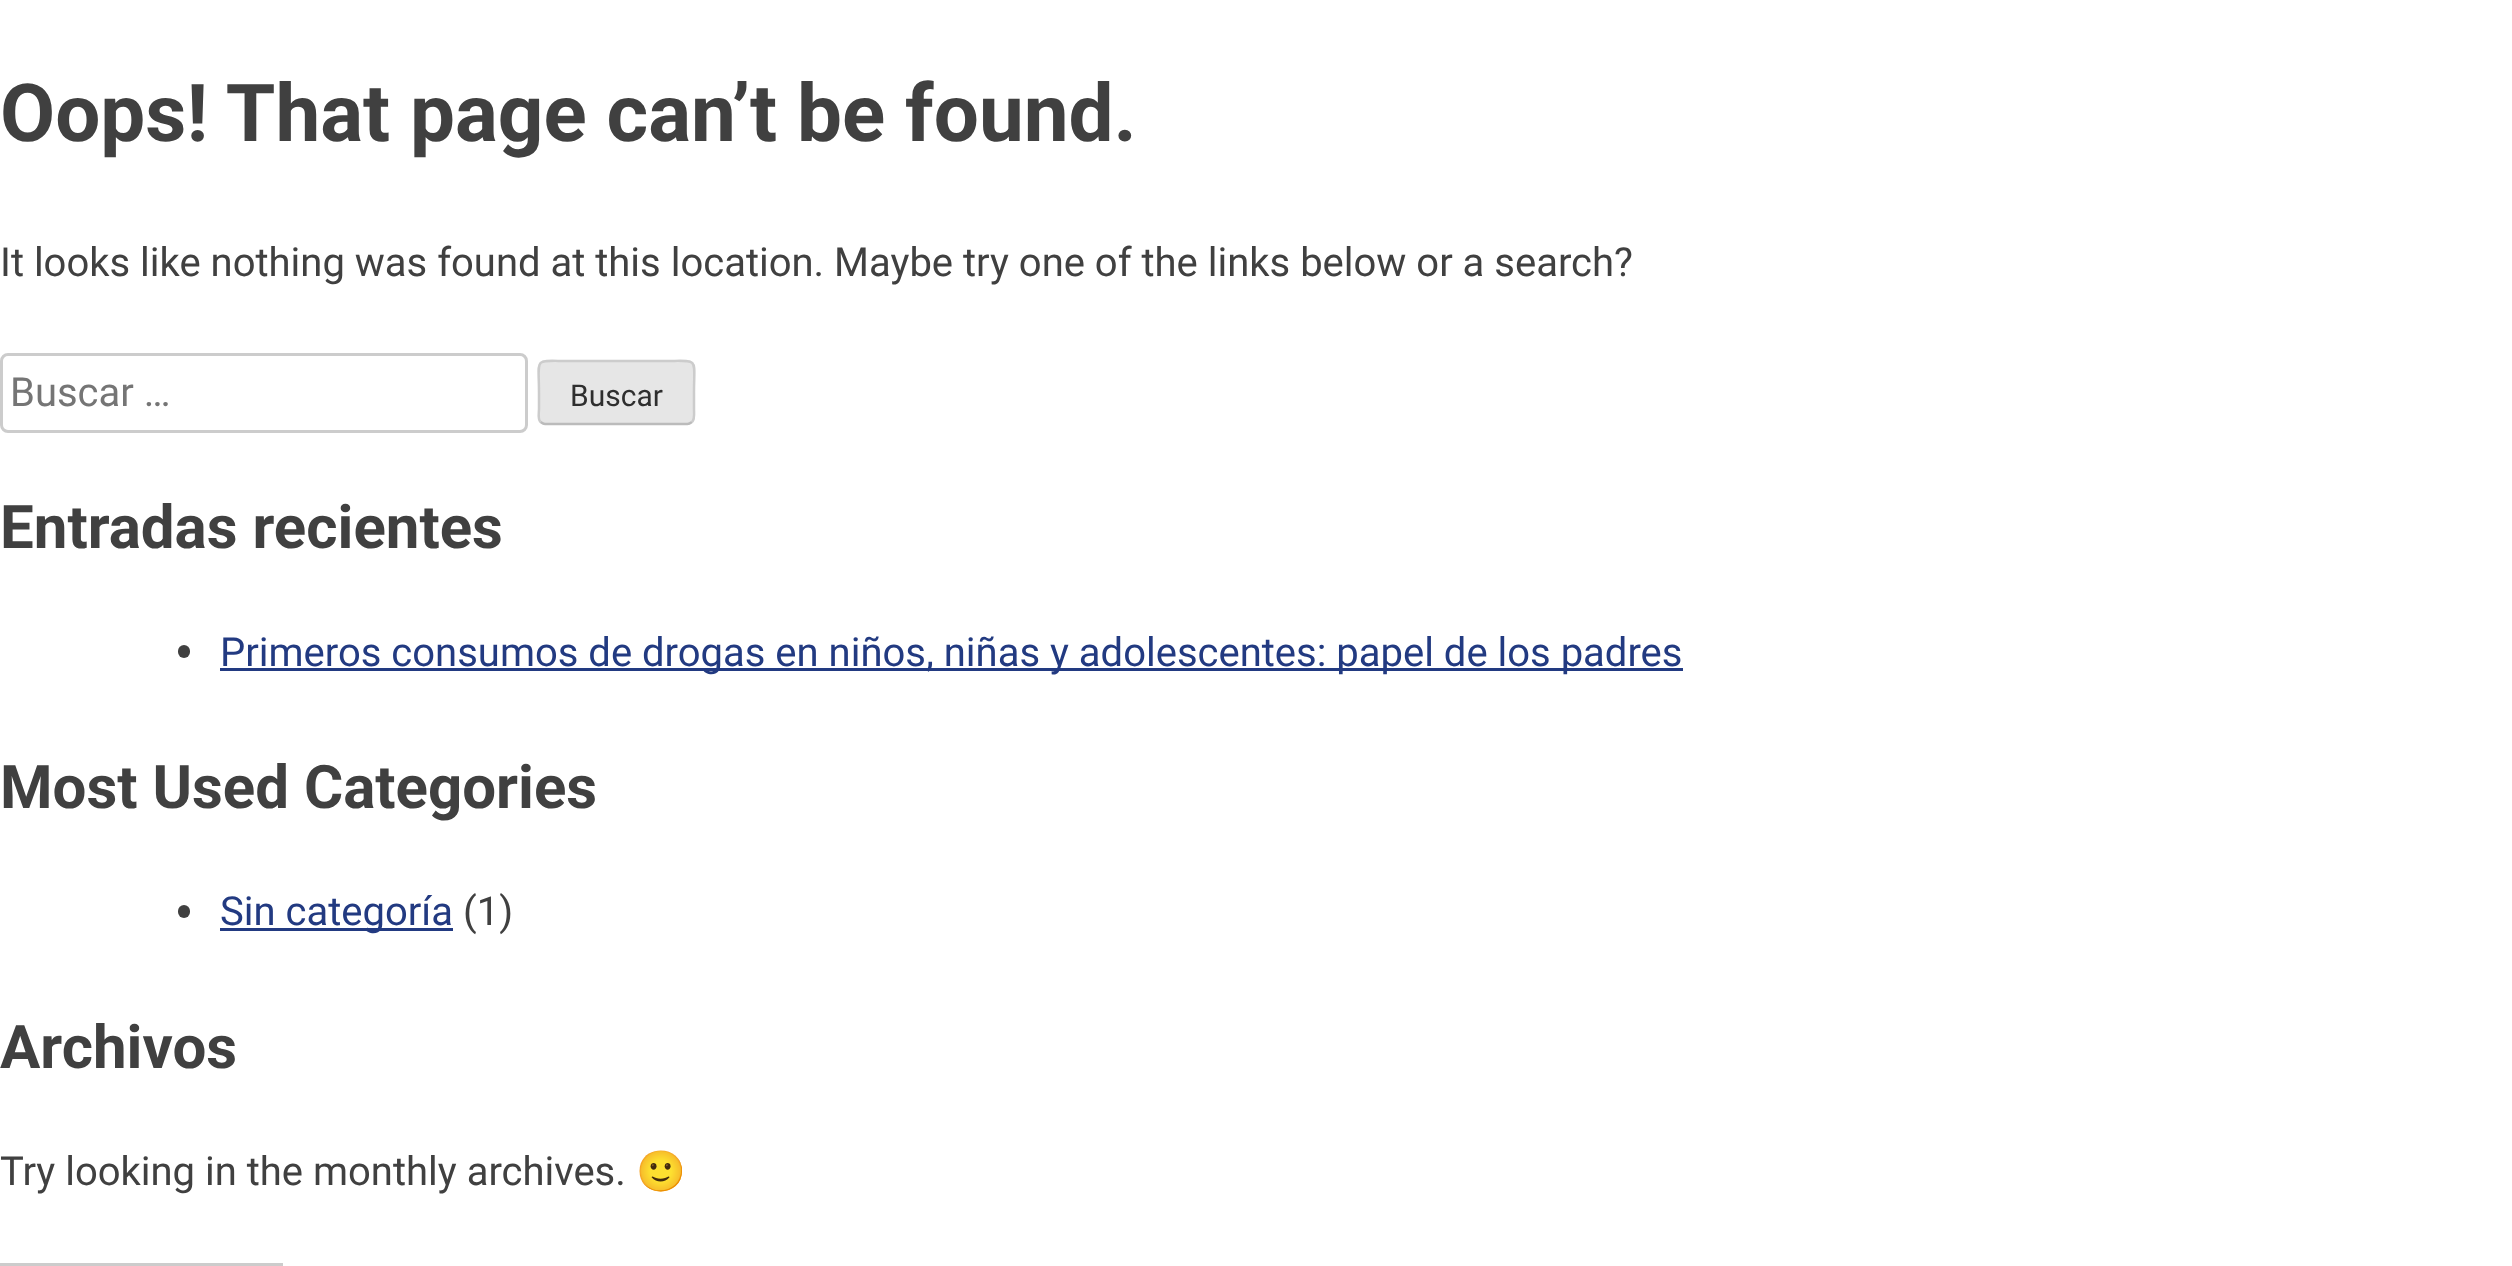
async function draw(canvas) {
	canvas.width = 2512;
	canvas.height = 1266;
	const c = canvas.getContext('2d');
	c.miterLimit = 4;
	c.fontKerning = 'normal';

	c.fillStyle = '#fff';
	c.fillRect(0, 0, 2512, 1266);
	c.font = 'bold 80px Roboto';
	c.fillStyle = '#404040';
	c.fillText('Oops! That page can’t be found.', 0, 141);
	c.font = '40px Roboto';
	c.fillText('It looks like nothing was found at this location. Maybe try one of the links below or a search?', 0, 276);
	c.beginPath();
	c.roundRect(1.5, 354.5, 525, 77, 6.5);
	c.strokeStyle = '#ccc';
	c.lineWidth = 3;
	c.stroke();
	c.fillStyle = '#757575';
	c.fillText('Buscar …', 10, 406);
	c.fillStyle = '#e6e6e6';
	c.beginPath();
	c.roundRect(538, 360, 157, 65, 8);
	c.fill();
	c.beginPath();
	c.moveTo(692, 422);
	c.bezierCurveTo(690.5, 423, 689, 424, 687.5, 424);
	c.lineTo(545, 424);
	c.bezierCurveTo(543.5, 424, 542, 423, 540.5, 422);
	c.strokeStyle = '#bbb';
	c.lineWidth = 2.5;
	c.stroke();
	c.beginPath();
	c.moveTo(540.5, 422);
	c.bezierCurveTo(537.5, 419, 539, 412.5, 539, 409);
	c.lineTo(539, 392.5);
	c.bezierCurveTo(539, 356.5, 532.5, 361, 569, 361);
	c.lineTo(664, 361);
	c.bezierCurveTo(700, 361, 694, 356.5, 694, 392.5);
	c.lineTo(694, 409);
	c.bezierCurveTo(694, 412.5, 695, 419, 692, 422);
	c.strokeStyle = '#ccc';
	c.stroke();
	c.font = '30px Roboto';
	c.fillStyle = '#2e2e2e';
	c.fillText('Buscar', 570, 406);
	c.font = 'bold 60px Roboto';
	c.fillStyle = '#404040';
	c.fillText('Entradas recientes', 0, 548);
	c.beginPath();
	c.roundRect(178, 645, 12, 13, 6);
	c.fill();
	c.fillStyle = '#223a81';
	c.fillRect(220, 668, 1463, 3);
	c.font = '40px Roboto';
	c.fillText('Primeros consumos de drogas en niños, niñas y adolescentes: papel de los padres', 220, 666);
	c.font = 'bold 60px Roboto';
	c.fillStyle = '#404040';
	c.fillText('Most Used Categories', 0, 808);
	c.beginPath();
	c.roundRect(178, 905, 12, 13, 6);
	c.fill();
	c.fillStyle = '#223a81';
	c.fillRect(220, 928, 233, 3);
	c.font = '40px Roboto';
	c.fillText('Sin categoría', 220, 925);
	c.fillStyle = '#404040';
	c.fillText('(1)', 463, 925);
	c.font = 'bold 60px Roboto';
	c.fillText('Archivos', 0, 1068);
	c.font = '40px Roboto';
	c.fillText('Try looking in the monthly archives.', 0, 1185);
	c.font = '40px Noto Color Emoji';
	c.fillText('🙂', 636, 1185);
	c.lineWidth = 3;
	c.strokeRect(1.5, 1264.5, 280, 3);
}

draw(document.querySelector('canvas'));
